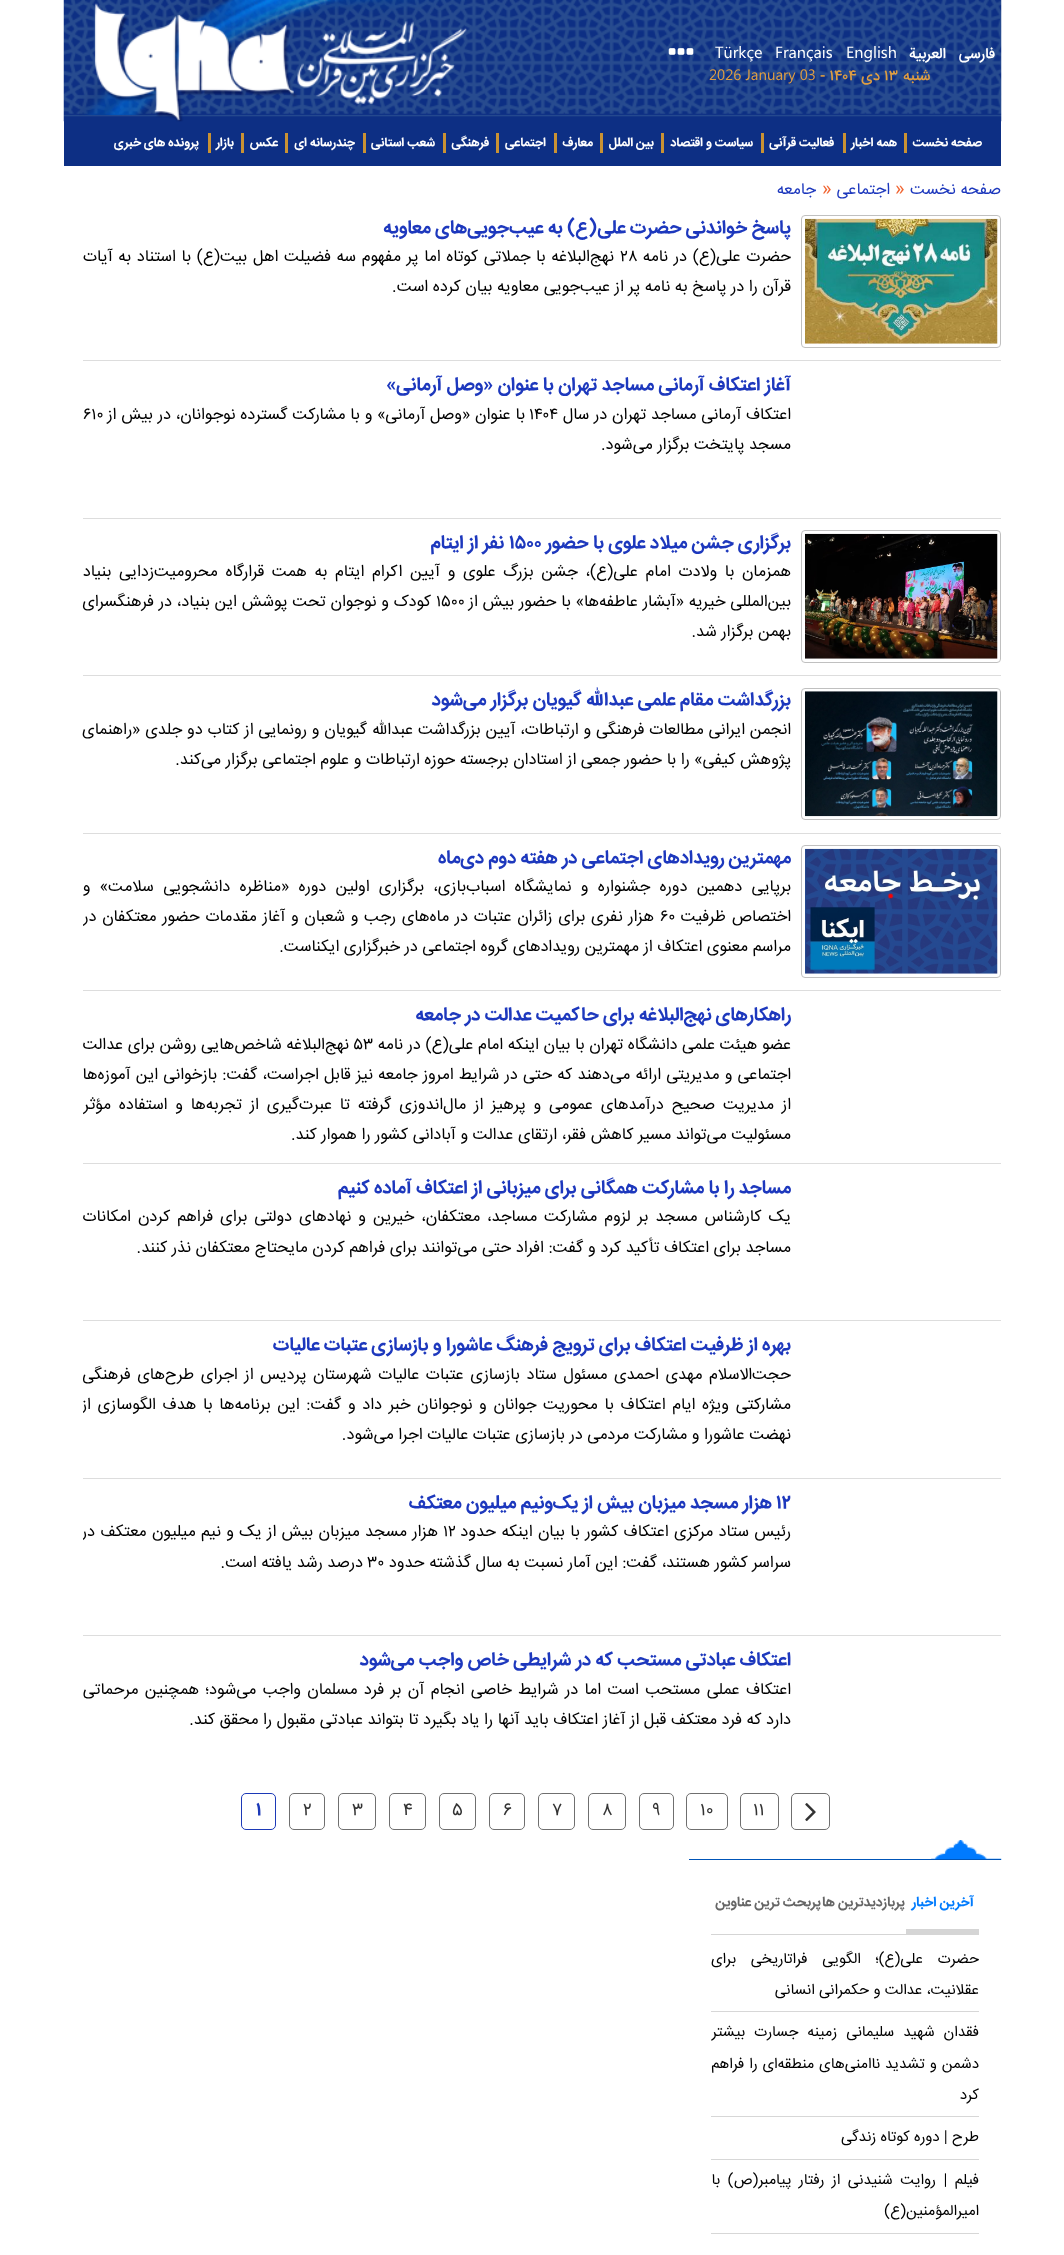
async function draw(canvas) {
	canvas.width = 1064;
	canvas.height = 2255;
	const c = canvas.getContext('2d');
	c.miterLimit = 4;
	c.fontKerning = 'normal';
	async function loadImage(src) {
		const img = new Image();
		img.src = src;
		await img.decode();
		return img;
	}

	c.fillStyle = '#fff';
	c.fillRect(0, 0, 1064, 2255);
	c.drawImage(await loadImage('img1.png'), 63, 0, 939, 122);
	c.direction = 'rtl';
	c.font = '500 15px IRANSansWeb';
	c.fillText('فارسی', 995, 58);
	c.fillText('العربیة', 946, 58);
	c.direction = 'ltr';
	c.font = '16.25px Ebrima';
	for (const [text, x, y] of [
		['English', 846, 58],
		['Français', 775, 58],
		['Türkçe', 715, 58],
	]) {
		c.fillText(text, x, y);
	}
	c.drawImage(await loadImage('img2.png'), 668, 48, 26, 7);
	c.fillStyle = '#0d2f84';
	c.fillRect(64, 121, 937, 45);
	c.drawImage(await loadImage('img3.png'), 79, 0, 388, 122);
	c.direction = 'rtl';
	c.font = '500 15px IRANSansWeb';
	c.fillStyle = '#df9e42';
	c.fillText('شنبه', 930, 80);
	c.direction = 'ltr';
	c.fillText('۱۳', 884, 80);
	c.direction = 'rtl';
	c.fillText('دی', 880, 80);
	c.direction = 'ltr';
	c.fillText('- ۱۴۰۴', 820, 80);
	c.font = '15px Ebrima';
	c.fillText('2026 January 03', 709, 80);
	c.direction = 'rtl';
	c.font = 'bold 12.5px IRANSansWeb';
	c.fillStyle = '#fff';
	c.fillText('صفحه نخست', 982, 146);
	c.fillStyle = '#c99233';
	c.fillRect(904, 133, 3, 20);
	c.fillStyle = '#fff';
	c.fillText('همه اخبار', 897, 146);
	c.fillStyle = '#c99233';
	c.fillRect(843, 133, 3, 20);
	c.fillStyle = '#fff';
	c.fillText('فعالیت قرآنی', 834, 146);
	c.fillStyle = '#c99233';
	c.fillRect(761, 133, 3, 20);
	c.fillStyle = '#fff';
	c.fillText('سیاست و اقتصاد', 753, 146);
	c.fillStyle = '#c99233';
	c.fillRect(661, 133, 3, 20);
	c.fillStyle = '#fff';
	c.fillText('بین الملل', 654, 146);
	c.fillStyle = '#c99233';
	c.fillRect(600, 133, 3, 20);
	c.fillStyle = '#fff';
	c.fillText('معارف', 593, 146);
	c.fillStyle = '#c99233';
	c.fillRect(554, 133, 3, 20);
	c.fillStyle = '#fff';
	c.fillText('اجتماعی', 546, 146);
	c.fillStyle = '#c99233';
	c.fillRect(496, 133, 3, 20);
	c.fillStyle = '#fff';
	c.fillText('فرهنگی', 489, 146);
	c.fillStyle = '#c99233';
	c.fillRect(443, 133, 3, 20);
	c.fillStyle = '#fff';
	c.fillText('شعب استانی', 435, 146);
	c.fillStyle = '#c99233';
	c.fillRect(363, 133, 3, 20);
	c.fillStyle = '#fff';
	c.fillText('چندرسانه ای', 355, 146);
	c.fillStyle = '#c99233';
	c.fillRect(285, 133, 3, 20);
	c.fillStyle = '#fff';
	c.fillText('عکس', 278, 146);
	c.fillStyle = '#c99233';
	c.fillRect(241, 133, 3, 20);
	c.fillStyle = '#fff';
	c.fillText('بازار', 234, 146);
	c.fillStyle = '#c99233';
	c.fillRect(208, 133, 3, 20);
	c.fillStyle = '#fff';
	c.fillText('پرونده های خبری', 199, 146);
	c.font = '16.25px IRANSansWeb';
	c.fillStyle = '#1d38bd';
	c.fillText('صفحه نخست', 1001, 194);
	c.direction = 'ltr';
	c.font = '18.75px IRANSansWeb';
	c.fillStyle = '#f16633';
	c.fillText('»', 895, 194);
	c.direction = 'rtl';
	c.font = '16.25px IRANSansWeb';
	c.fillStyle = '#1d38bd';
	c.fillText('اجتماعی', 890, 194);
	c.direction = 'ltr';
	c.font = '18.75px IRANSansWeb';
	c.fillStyle = '#f16633';
	c.fillText('»', 822, 194);
	c.direction = 'rtl';
	c.font = '16.25px IRANSansWeb';
	c.fillStyle = '#1d38bd';
	c.fillText('جامعه', 816, 194);
	c.fillStyle = '#ddd';
	c.fillRect(83, 360, 918, 1);
	c.beginPath();
	c.roundRect(801.5, 215.5, 199, 132, 3.5);
	c.strokeStyle = '#c0c0c0';
	c.stroke();
	c.drawImage(await loadImage('img4.png'), 805, 218, 193, 126);
	c.font = 'bold 18.75px IRANSansWeb';
	c.fillStyle = '#1d38bd';
	c.fillText('پاسخ خواندنی حضرت علی(ع) به عیب‌جویی‌های معاویه', 791, 233);
	c.wordSpacing = '1.1px';
	c.font = '16.25px IRANSansWeb';
	c.fillStyle = '#000';
	c.fillText('حضرت علی(ع) در نامه', 791, 261);
	c.wordSpacing = '0px';
	c.direction = 'ltr';
	c.fillText('۲۸', 620, 261);
	c.wordSpacing = '1.1px';
	c.direction = 'rtl';
	c.fillText('نهج‌البلاغه با جملاتی کوتاه اما پر مفهوم سه فضیلت اهل بیت(ع) با استناد به آیات', 614, 261);
	c.wordSpacing = '0px';
	c.fillText('قرآن را در پاسخ به نامه پر از عیب‌جویی معاویه بیان کرده است.', 791, 291);
	c.fillStyle = '#ddd';
	c.fillRect(83, 518, 918, 1);
	c.font = 'bold 18.75px IRANSansWeb';
	c.fillStyle = '#1d38bd';
	c.fillText('آغاز اعتکاف آرمانی مساجد تهران با عنوان «وصل آرمانی»', 791, 390);
	c.wordSpacing = '0.25px';
	c.font = '16.25px IRANSansWeb';
	c.fillStyle = '#000';
	c.fillText('اعتکاف آرمانی مساجد تهران در سال', 791, 419);
	c.wordSpacing = '0px';
	c.direction = 'ltr';
	c.fillText('۱۴۰۴', 529, 419);
	c.wordSpacing = '0.25px';
	c.direction = 'rtl';
	c.fillText('با عنوان «وصل آرمانی» و با مشارکت گسترده نوجوانان، در بیش از', 525, 419);
	c.wordSpacing = '0px';
	c.direction = 'ltr';
	c.fillText('۶۱۰', 83, 419);
	c.direction = 'rtl';
	c.fillText('مسجد پایتخت برگزار می‌شود.', 791, 449);
	c.fillStyle = '#ddd';
	c.fillRect(83, 675, 918, 1);
	c.beginPath();
	c.roundRect(801.5, 530.5, 199, 132, 3.5);
	c.stroke();
	c.drawImage(await loadImage('img5.png'), 805, 533, 193, 126);
	c.font = 'bold 18.75px IRANSansWeb';
	c.fillStyle = '#1d38bd';
	c.fillText('برگزاری جشن میلاد علوی با حضور', 791, 548);
	c.direction = 'ltr';
	c.fillText('۱۵۰۰', 509, 548);
	c.direction = 'rtl';
	c.fillText('نفر از ایتام', 504, 548);
	c.wordSpacing = '3.1px';
	c.font = '16.25px IRANSansWeb';
	c.fillStyle = '#000';
	c.fillText('همزمان با ولادت امام علی(ع)، جشن بزرگ علوی و آیین اکرام ایتام به همت قرارگاه محرومیت‌زدایی بنیاد', 791, 576);
	c.wordSpacing = '0.25px';
	c.fillText('بین‌المللی خیریه «آبشار عاطفه‌ها» با حضور بیش از', 791, 606);
	c.wordSpacing = '0px';
	c.direction = 'ltr';
	c.fillText('۱۵۰۰', 436, 606);
	c.wordSpacing = '0.25px';
	c.direction = 'rtl';
	c.fillText('کودک و نوجوان تحت پوشش این بنیاد، در فرهنگسرای', 431, 606);
	c.wordSpacing = '0px';
	c.fillText('بهمن برگزار شد.', 791, 636);
	c.fillStyle = '#ddd';
	c.fillRect(83, 833, 918, 1);
	c.beginPath();
	c.roundRect(801.5, 688.5, 199, 131, 3.5);
	c.stroke();
	c.drawImage(await loadImage('img6.png'), 805, 691, 193, 126);
	c.font = 'bold 18.75px IRANSansWeb';
	c.fillStyle = '#1d38bd';
	c.fillText('بزرگداشت مقام علمی عبدالله گیویان برگزار می‌شود', 791, 705);
	c.wordSpacing = '0.25px';
	c.font = '16.25px IRANSansWeb';
	c.fillStyle = '#000';
	c.fillText('انجمن ایرانی مطالعات فرهنگی و ارتباطات، آیین بزرگداشت عبدالله گیویان و رونمایی از کتاب دو جلدی «راهنمای', 791, 734);
	c.wordSpacing = '0px';
	c.fillText('پژوهش کیفی» را با حضور جمعی از استادان برجسته حوزه ارتباطات و علوم اجتماعی برگزار می‌کند.', 791, 764);
	c.fillStyle = '#ddd';
	c.fillRect(83, 990, 918, 1);
	c.beginPath();
	c.roundRect(801.5, 845.5, 199, 132, 3.5);
	c.stroke();
	c.drawImage(await loadImage('img7.png'), 805, 848, 193, 126);
	c.font = 'bold 18.75px IRANSansWeb';
	c.fillStyle = '#1d38bd';
	c.fillText('مهمترین رویدادهای اجتماعی در هفته دوم دی‌ماه', 791, 863);
	c.wordSpacing = '4.75px';
	c.font = '16.25px IRANSansWeb';
	c.fillStyle = '#000';
	c.fillText('برپایی دهمین دوره جشنواره و نمایشگاه اسباب‌بازی، برگزاری اولین دوره «مناظره دانشجویی سلامت» و', 791, 891);
	c.wordSpacing = '1.1px';
	c.fillText('اختصاص ظرفیت', 791, 921);
	c.wordSpacing = '0px';
	c.direction = 'ltr';
	c.fillText('۶۰', 660, 921);
	c.save();
	c.beginPath();
	c.rect(83, 845, 918, 133);
	c.clip();
	c.wordSpacing = '1.1px';
	c.direction = 'rtl';
	c.fillText('هزار نفری برای زائران عتبات در ماه‌های رجب و شعبان و آغاز مقدمات حضور معتکفان در', 654, 921);
	c.restore();
	c.direction = 'rtl';
	c.fillText('مراسم معنوی اعتکاف از مهمترین رویدادهای گروه اجتماعی در خبرگزاری ایکناست.', 791, 951);
	c.fillStyle = '#ddd';
	c.fillRect(83, 1163, 918, 1);
	c.font = 'bold 18.75px IRANSansWeb';
	c.fillStyle = '#1d38bd';
	c.fillText('راهکارهای نهج‌البلاغه برای حاکمیت عدالت در جامعه', 791, 1020);
	c.font = '16.25px IRANSansWeb';
	c.fillStyle = '#000';
	c.fillText('عضو هیئت علمی دانشگاه تهران با بیان اینکه امام علی(ع) در نامه', 791, 1049);
	c.direction = 'ltr';
	c.fillText('۵۳', 354, 1049);
	c.direction = 'rtl';
	c.fillText('نهج‌البلاغه شاخص‌هایی روشن برای عدالت', 349, 1049);
	c.wordSpacing = '0.6px';
	c.fillText('اجتماعی و مدیریتی ارائه می‌دهند که حتی در شرایط امروز جامعه نیز قابل اجراست، گفت: بازخوانی این آموزه‌ها', 791, 1079);
	c.save();
	c.beginPath();
	c.rect(83, 1003, 918, 147);
	c.clip();
	c.wordSpacing = '3.25px';
	c.fillText('از مدیریت صحیح درآمدهای عمومی و پرهیز از مال‌اندوزی گرفته تا عبرت‌گیری از تجربه‌ها و استفاده مؤثر', 791, 1109);
	c.restore();
	c.wordSpacing = '0px';
	c.fillText('مسئولیت می‌تواند مسیر کاهش فقر، ارتقای عدالت و آبادانی کشور را هموار کند.', 791, 1139);
	c.fillStyle = '#ddd';
	c.fillRect(83, 1320, 918, 1);
	c.font = 'bold 18.75px IRANSansWeb';
	c.fillStyle = '#1d38bd';
	c.fillText('مساجد را با مشارکت همگانی برای میزبانی از اعتکاف آماده کنیم', 791, 1193);
	c.wordSpacing = '2.4px';
	c.font = '16.25px IRANSansWeb';
	c.fillStyle = '#000';
	c.fillText('یک کارشناس مسجد بر لزوم مشارکت مساجد، معتکفان، خیرین و نهادهای دولتی برای فراهم کردن امکانات', 791, 1221);
	c.wordSpacing = '0px';
	c.fillText('مساجد برای اعتکاف تأکید کرد و گفت: افراد حتی می‌توانند برای فراهم کردن مایحتاج معتکفان نذر کنند.', 791, 1252);
	c.fillStyle = '#ddd';
	c.fillRect(83, 1478, 918, 1);
	c.font = 'bold 18.75px IRANSansWeb';
	c.fillStyle = '#1d38bd';
	c.fillText('بهره‌ از ظرفیت اعتکاف برای ترویج فرهنگ عاشورا و بازسازی عتبات عالیات', 791, 1350);
	c.wordSpacing = '2px';
	c.font = '16.25px IRANSansWeb';
	c.fillStyle = '#000';
	c.fillText('حجت‌الاسلام مهدی احمدی مسئول ستاد بازسازی عتبات عالیات شهرستان پردیس از اجرای طرح‌های فرهنگی', 791, 1379);
	c.save();
	c.beginPath();
	c.rect(83, 1333, 918, 132);
	c.clip();
	c.wordSpacing = '2.1px';
	c.fillText('مشارکتی ویژه ایام اعتکاف با محوریت جوانان و نوجوانان خبر داد و گفت: این برنامه‌ها با هدف الگوسازی از', 791, 1409);
	c.restore();
	c.wordSpacing = '0px';
	c.fillText('نهضت عاشورا و مشارکت مردمی در بازسازی عتبات عالیات اجرا می‌شود.', 791, 1439);
	c.fillStyle = '#ddd';
	c.fillRect(83, 1635, 918, 1);
	c.direction = 'ltr';
	c.font = 'bold 18.75px IRANSansWeb';
	c.fillStyle = '#1d38bd';
	c.fillText('۱۲', 776, 1508);
	c.direction = 'rtl';
	c.fillText('هزار مسجد میزبان بیش از یک‌ونیم میلیون معتکف', 772, 1508);
	c.wordSpacing = '0.75px';
	c.font = '16.25px IRANSansWeb';
	c.fillStyle = '#000';
	c.fillText('رئیس ستاد مرکزی اعتکاف کشور با بیان اینکه حدود', 791, 1536);
	c.wordSpacing = '0px';
	c.direction = 'ltr';
	c.fillText('۱۲', 443, 1536);
	c.save();
	c.beginPath();
	c.rect(83, 1490, 918, 133);
	c.clip();
	c.wordSpacing = '0.75px';
	c.direction = 'rtl';
	c.fillText('هزار مسجد میزبان بیش از یک و نیم میلیون معتکف در', 438, 1536);
	c.restore();
	c.direction = 'rtl';
	c.fillText('سراسر کشور هستند، گفت: این آمار نسبت به سال گذشته حدود', 791, 1567);
	c.direction = 'ltr';
	c.fillText('۳۰', 367, 1567);
	c.direction = 'rtl';
	c.fillText('درصد رشد یافته است.', 363, 1567);
	c.font = 'bold 18.75px IRANSansWeb';
	c.fillStyle = '#1d38bd';
	c.fillText('اعتکاف عبادتی مستحب که در شرایطی خاص واجب می‌شود', 791, 1665);
	c.wordSpacing = '1.8px';
	c.font = '16.25px IRANSansWeb';
	c.fillStyle = '#000';
	c.fillText('اعتکاف عملی مستحب است اما در شرایط خاصی انجام آن بر فرد مسلمان واجب می‌شود؛ همچنین مرحماتی', 791, 1694);
	c.wordSpacing = '0px';
	c.fillText('دارد که فرد معتکف قبل از آغاز اعتکاف باید آنها را یاد بگیرد تا بتواند عبادتی مقبول را محقق کند.', 791, 1724);
	c.beginPath();
	c.roundRect(791.5, 1793.5, 38, 36, 4.5);
	c.strokeStyle = '#6f6f6f';
	c.stroke();
	c.drawImage(await loadImage('img8.png'), 805, 1803, 11, 19);
	c.beginPath();
	c.roundRect(740.5, 1793.5, 38, 36, 4.5);
	c.stroke();
	c.direction = 'ltr';
	c.font = '18px IRANSansWeb';
	c.fillStyle = '#333';
	c.fillText('۱۱', 753, 1815);
	c.beginPath();
	c.roundRect(686.5, 1793.5, 41, 36, 4.5);
	c.stroke();
	c.fillText('۱۰', 700, 1815);
	c.beginPath();
	c.roundRect(639.5, 1793.5, 34, 36, 4.5);
	c.stroke();
	c.fillText('۹', 652, 1815);
	c.beginPath();
	c.roundRect(588.5, 1793.5, 37, 36, 4.5);
	c.stroke();
	c.fillText('۸', 602, 1815);
	c.beginPath();
	c.roundRect(538.5, 1793.5, 36, 36, 4.5);
	c.stroke();
	c.fillText('۷', 552, 1815);
	c.beginPath();
	c.roundRect(489.5, 1793.5, 35, 36, 4.5);
	c.stroke();
	c.fillText('۶', 503, 1815);
	c.beginPath();
	c.roundRect(439.5, 1793.5, 36, 36, 4.5);
	c.stroke();
	c.fillText('۵', 452, 1815);
	c.beginPath();
	c.roundRect(389.5, 1793.5, 36, 36, 4.5);
	c.stroke();
	c.fillText('۴', 403, 1815);
	c.beginPath();
	c.roundRect(338.5, 1793.5, 37, 36, 4.5);
	c.stroke();
	c.fillText('۳', 352, 1815);
	c.beginPath();
	c.roundRect(289.5, 1793.5, 35, 36, 4.5);
	c.stroke();
	c.fillText('۲', 303, 1815);
	c.beginPath();
	c.roundRect(241.5, 1793.5, 34, 36, 4.5);
	c.strokeStyle = '#1c39b7';
	c.stroke();
	c.font = 'bold 18px IRANSansWeb';
	c.fillStyle = '#1c39b7';
	c.fillText('۱', 256, 1815);
	c.drawImage(await loadImage('img9.png'), 931, 1840, 71, 20);
	for (const [x, y, w, h, color] of [
		[689, 1859, 312, 1, '#0055b8'],
		[711, 1934, 268, 1, '#d5d5d5'],
		[906, 1929, 73, 5, '#d5d5d5'],
	]) {
		c.fillStyle = color;
		c.fillRect(x, y, w, h);
	}
	c.direction = 'rtl';
	c.font = 'bold 13.75px IRANSansWeb';
	c.fillStyle = '#007bfd';
	c.fillText('آخرین اخبار', 974, 1906);
	c.fillStyle = '#666';
	c.fillText('پربازدیدترین ها', 905, 1906);
	c.fillText('پربحث ترین عناوین', 821, 1906);
	c.fillStyle = '#d7d7d7';
	c.fillRect(711, 2011, 268, 1);
	c.wordSpacing = '10.5px';
	c.font = '15px IRANSansWeb';
	c.fillStyle = '#000';
	c.fillText('حضرت علی(ع)؛ الگویی فراتاریخی برای', 979, 1963);
	c.wordSpacing = '0px';
	c.fillText('عقلانیت، عدالت و حکمرانی انسانی', 979, 1994);
	c.fillStyle = '#d7d7d7';
	c.fillRect(711, 2116, 268, 1);
	c.wordSpacing = '4.75px';
	c.fillStyle = '#000';
	c.fillText('فقدان شهید سلیمانی زمینه جسارت بیشتر', 979, 2036);
	c.wordSpacing = '0.75px';
	c.fillText('دشمن و تشدید ناامنی‌های منطقه‌ای را فراهم', 979, 2068);
	c.wordSpacing = '0px';
	c.fillText('کرد', 979, 2099);
	c.fillStyle = '#d7d7d7';
	c.fillRect(711, 2159, 268, 1);
	c.fillStyle = '#000';
	c.fillText('طرح | دوره کوتاه زندگی', 979, 2141);
	c.fillStyle = '#d7d7d7';
	c.fillRect(711, 2233, 268, 1);
	c.wordSpacing = '3.25px';
	c.fillStyle = '#000';
	c.fillText('فیلم | روایت شنیدنی از رفتار پیامبر(ص) با', 979, 2184);
	c.wordSpacing = '0px';
	c.fillText('امیرالمؤمنین(ع)', 979, 2215);
}

draw(document.querySelector('canvas'));
